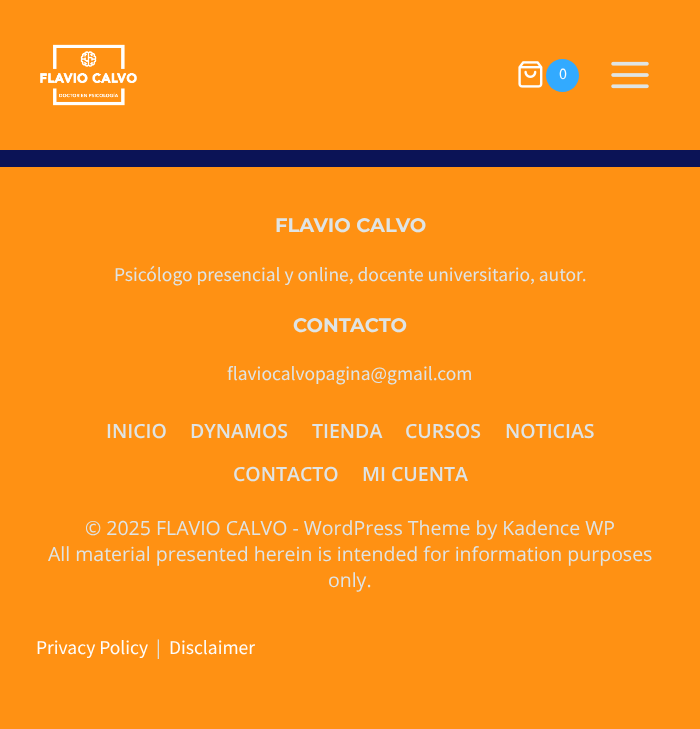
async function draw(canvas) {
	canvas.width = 700;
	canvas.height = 729;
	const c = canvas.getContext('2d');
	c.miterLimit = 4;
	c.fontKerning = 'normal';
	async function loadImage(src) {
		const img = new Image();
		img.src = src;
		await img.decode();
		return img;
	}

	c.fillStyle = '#fff';
	c.fillRect(0, 0, 700, 729);
	c.drawImage(await loadImage('img1.png'), 0, 150, 700, 17);
	c.fillStyle = '#ff9113';
	c.fillRect(0, 0, 700, 150);
	c.drawImage(await loadImage('img2.png'), 40, 44, 97, 62);
	c.drawImage(await loadImage('img3.png'), 518, 61, 25, 27);
	c.fillStyle = '#32aaff';
	c.beginPath();
	c.arc(562.5, 75.5, 16.5, 0, 2 * Math.PI);
	c.fill();
	c.font = '16px Source Sans Pro';
	c.fillStyle = '#fdfdfd';
	c.fillText('0', 559, 79);
	c.drawImage(await loadImage('img4.png'), 611, 61, 38, 28);
	c.fillStyle = '#ff9113';
	c.fillRect(0, 167, 700, 562);
	c.font = 'bold 19.5px Montserrat';
	c.fillStyle = '#dfe4e5';
	c.fillText('FLAVIO CALVO', 275, 232);
	c.font = '19.5px Source Sans Pro';
	c.fillText('Psicólogo presencial y online, docente universitario, autor.', 114, 281);
	c.font = 'bold 19.5px Montserrat';
	c.fillText('CONTACTO', 293, 332);
	c.font = '19.5px Source Sans Pro';
	c.fillText('flaviocalvopagina@gmail.com', 227, 380);
	c.font = '600 19.5px Open Sans';
	for (const [text, x, y] of [
		['INICIO', 106, 438],
		['DYNAMOS', 190, 438],
		['TIENDA', 312, 438],
		['CURSOS', 405, 438],
		['NOTICIAS', 505, 438],
		['CONTACTO', 233, 481],
		['MI CUENTA', 362, 481],
	]) {
		c.fillText(text, x, y);
	}
	c.font = '19.5px Open Sans';
	for (const [text, x, y] of [
		['© 2025 FLAVIO CALVO - WordPress Theme by Kadence WP', 85, 535],
		['All material presented herein is intended for information purposes', 48, 561],
		['only.', 328, 587],
	]) {
		c.fillText(text, x, y);
	}
	c.font = '19.5px Source Sans Pro';
	c.fillStyle = '#fdfdfd';
	c.fillText('Privacy Policy', 36, 654);
	c.fillStyle = '#dfe4e5';
	c.fillText('|', 156, 654);
	c.fillStyle = '#fdfdfd';
	c.fillText('Disclaimer', 169, 654);
}

draw(document.querySelector('canvas'));
